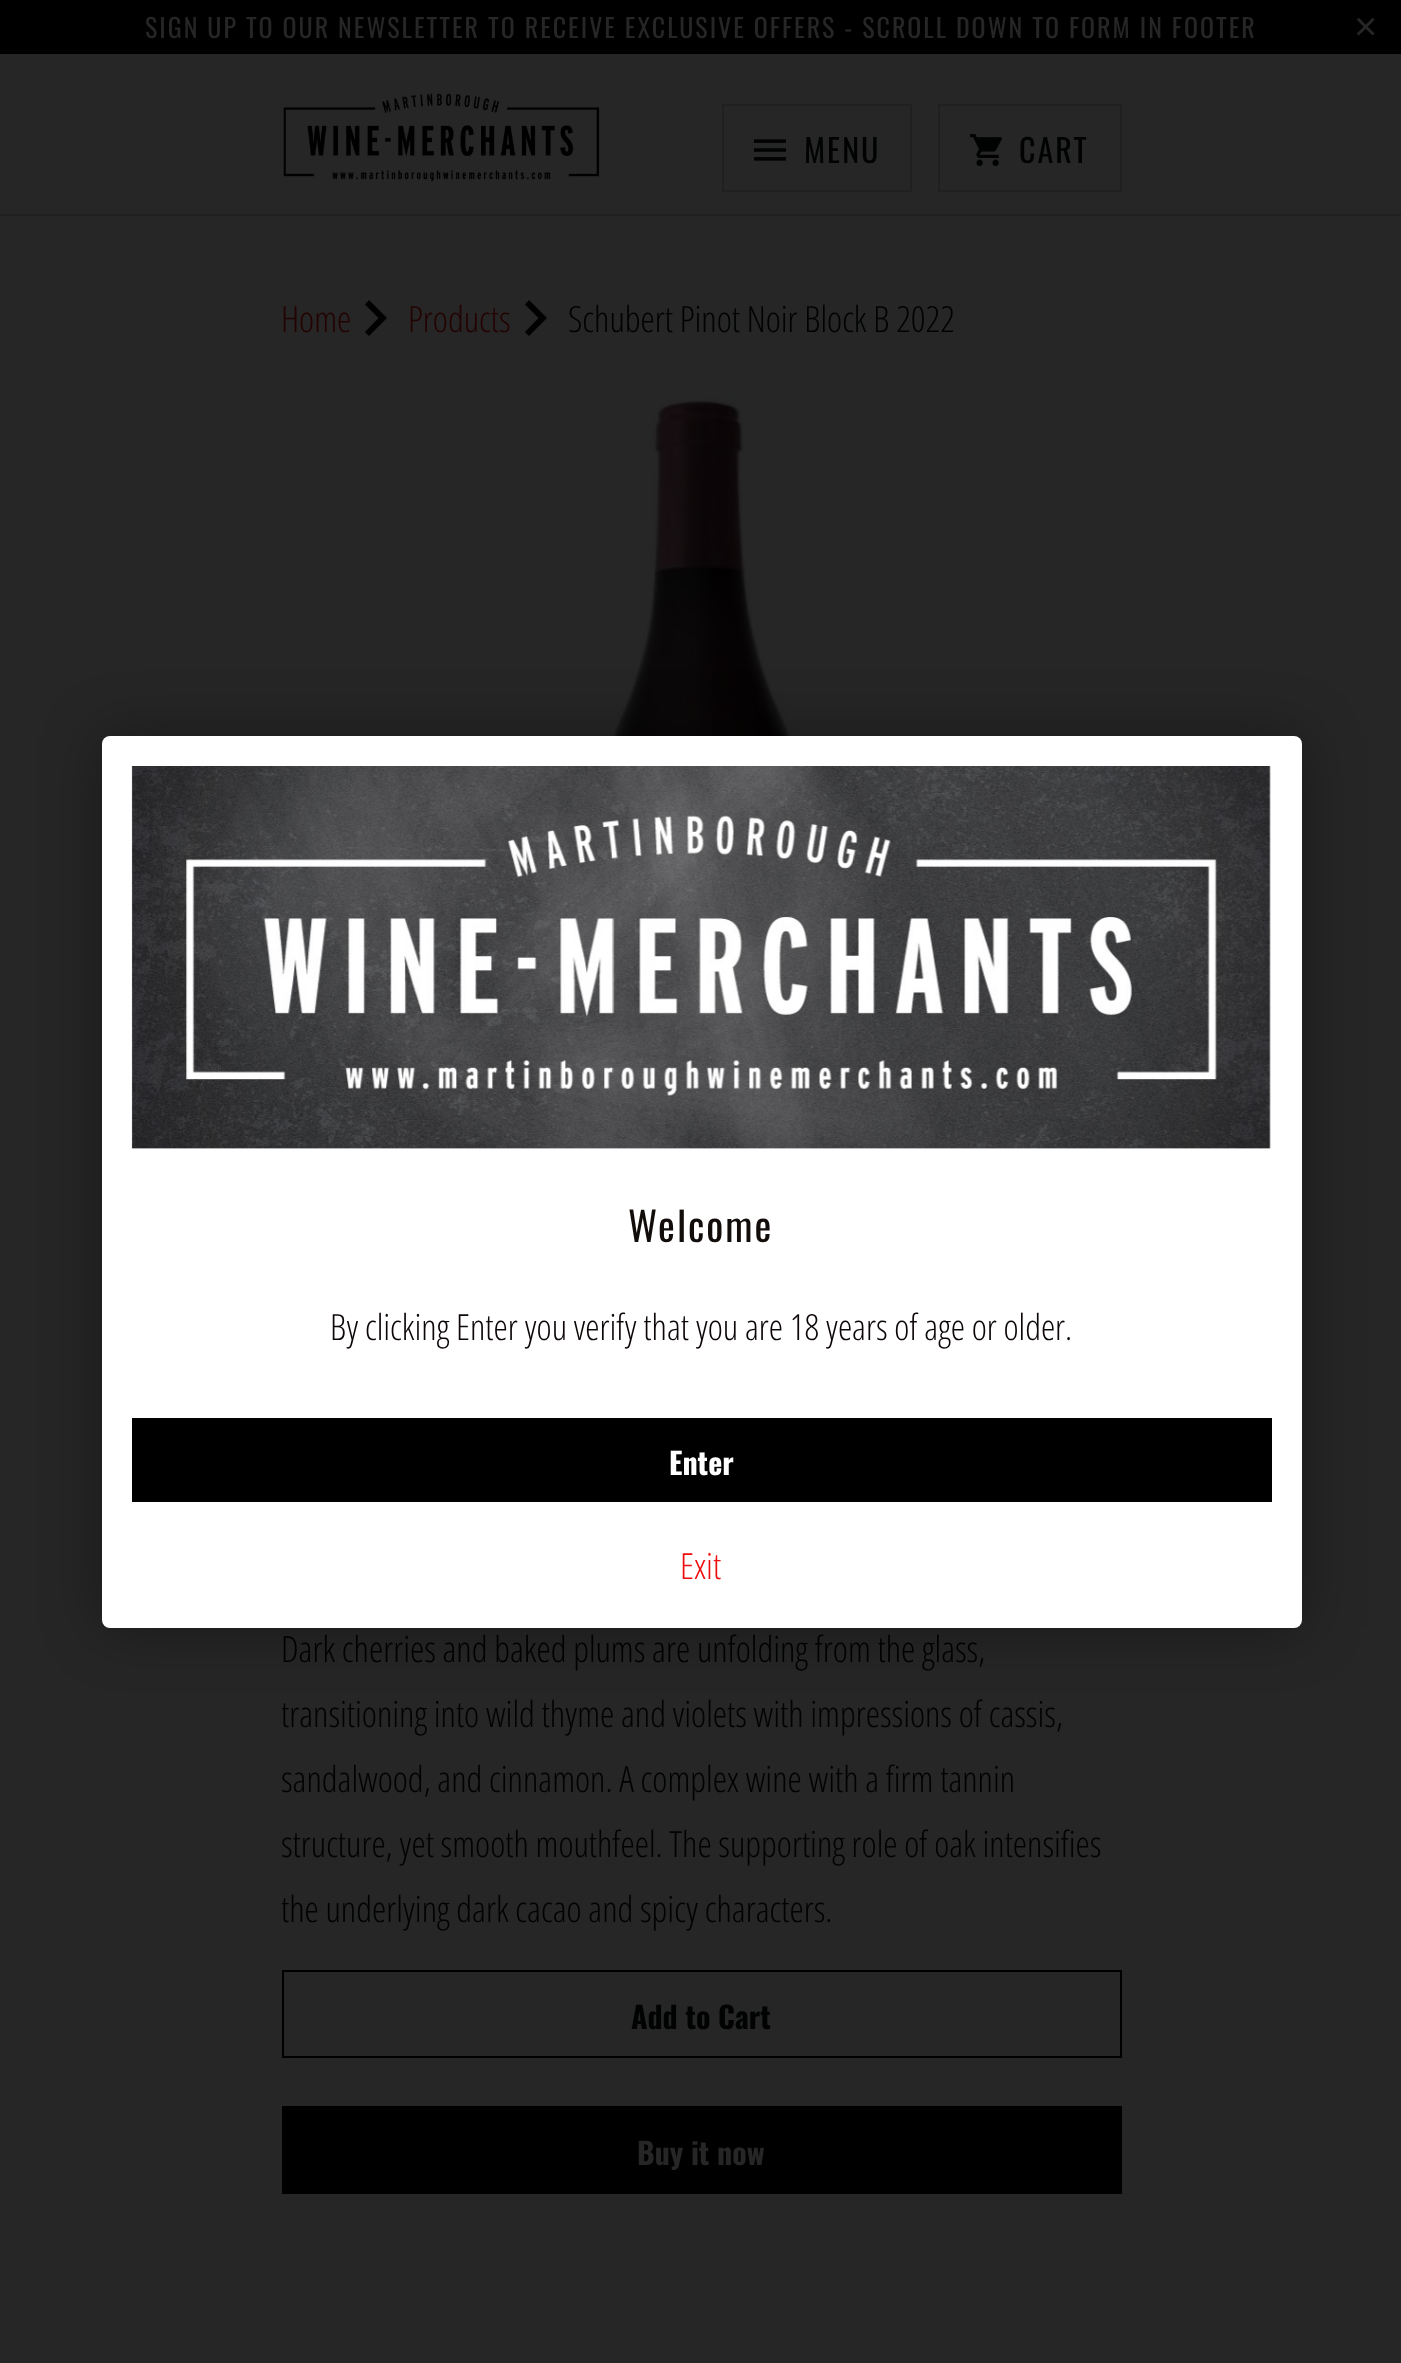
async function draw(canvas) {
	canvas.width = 1401;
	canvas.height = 2363;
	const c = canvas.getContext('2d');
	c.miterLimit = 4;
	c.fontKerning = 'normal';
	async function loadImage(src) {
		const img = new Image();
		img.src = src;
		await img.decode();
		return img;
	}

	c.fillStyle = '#262626';
	c.fillRect(0, 0, 1401, 2363);
	c.fillStyle = '#000';
	c.fillRect(0, 0, 1401, 54);
	c.letterSpacing = '2px';
	c.font = '26px Oswald';
	c.fillStyle = '#262626';
	c.fillText('SIGN UP TO OUR NEWSLETTER TO RECEIVE EXCLUSIVE OFFERS - SCROLL DOWN TO FORM IN FOOTER', 145, 38);
	c.font = '40px Liberation Sans';
	c.fillText('×', 1354, 40);
	c.fillStyle = '#202020';
	c.fillRect(0, 214, 1401, 2);
	c.drawImage(await loadImage('img1.png'), 283, 93, 317, 89);
	c.strokeStyle = '#202020';
	c.lineWidth = 2;
	c.strokeRect(723, 105, 188, 86);
	c.drawImage(await loadImage('img2.png'), 754, 139, 32, 22);
	c.font = '32px Oswald';
	c.fillStyle = '#010202';
	c.fillText('MENU', 804, 163);
	c.strokeRect(939, 105, 182, 86);
	c.drawImage(await loadImage('img3.png'), 970, 134, 32, 32);
	c.fillText('CART', 1019, 163);
	c.letterSpacing = '0px';
	c.font = '300 36px Open Sans Condensed';
	c.fillStyle = '#240202';
	c.fillText('Home', 281, 332);
	c.fillStyle = '#020101';
	c.beginPath();
	c.moveTo(369, 300);
	c.lineTo(365, 304.5);
	c.lineTo(378.5, 318);
	c.lineTo(365, 332);
	c.lineTo(369, 336);
	c.lineTo(387, 318);
	c.closePath();
	c.fill();
	c.fillStyle = '#240202';
	c.fillText('Products', 408, 332);
	c.fillStyle = '#020101';
	c.beginPath();
	c.moveTo(529, 300);
	c.lineTo(525, 304.5);
	c.lineTo(538.5, 318);
	c.lineTo(525, 332);
	c.lineTo(529, 336);
	c.lineTo(547, 318);
	c.closePath();
	c.fill();
	c.fillStyle = '#010202';
	c.fillText('Schubert Pinot Noir Block B 2022', 568, 332);
	c.drawImage(await loadImage('img4.png'), 492, 396, 420, 340);
	for (const [text, x, y] of [
		['Dark cherries and baked plums are unfolding from the glass,', 281, 1662],
		['transitioning into wild thyme and violets with impressions of cassis,', 281, 1727],
		['sandalwood, and cinnamon. A complex wine with a firm tannin', 281, 1792],
		['structure, yet smooth mouthfeel. The supporting role of oak intensifies', 281, 1857],
		['the underlying dark cacao and spicy characters.', 281, 1922],
	]) {
		c.fillText(text, x, y);
	}
	c.strokeStyle = '#000';
	c.strokeRect(283, 1971, 838, 86);
	c.font = 'bold 30px Oswald';
	c.fillText('Add to Cart', 631, 2029);
	c.fillStyle = '#000';
	c.fillRect(282, 2106, 840, 88);
	c.fillStyle = '#262626';
	c.fillText('Buy it now', 637, 2165);
	c.fillStyle = '#00000059';
	c.filter = 'blur(30px)';
	c.beginPath();
	c.roundRect(102, 736, 1200, 892, 8);
	c.fill();
	c.filter = 'none';
	c.fillStyle = '#fff';
	c.beginPath();
	c.roundRect(102, 736, 1200, 892, 8);
	c.fill();
	c.drawImage(await loadImage('img5.png'), 131, 766, 1140, 383);
	c.letterSpacing = '2px';
	c.font = '40px Oswald';
	c.fillStyle = '#120d0a';
	c.fillText('Welcome', 628, 1242);
	c.letterSpacing = '0px';
	c.font = '300 36px Open Sans Condensed';
	c.fillStyle = '#0c0606';
	c.fillText('By clicking Enter you verify that you are 18 years of age or older.', 330, 1340);
	c.fillStyle = '#000';
	c.fillRect(132, 1418, 1140, 84);
	c.font = 'bold 30px Oswald';
	c.fillStyle = '#fff';
	c.fillText('Enter', 669, 1475);
	c.font = '300 36px Open Sans Condensed';
	c.fillStyle = '#ed0d0d';
	c.fillText('Exit', 680, 1579);
}

draw(document.querySelector('canvas'));
